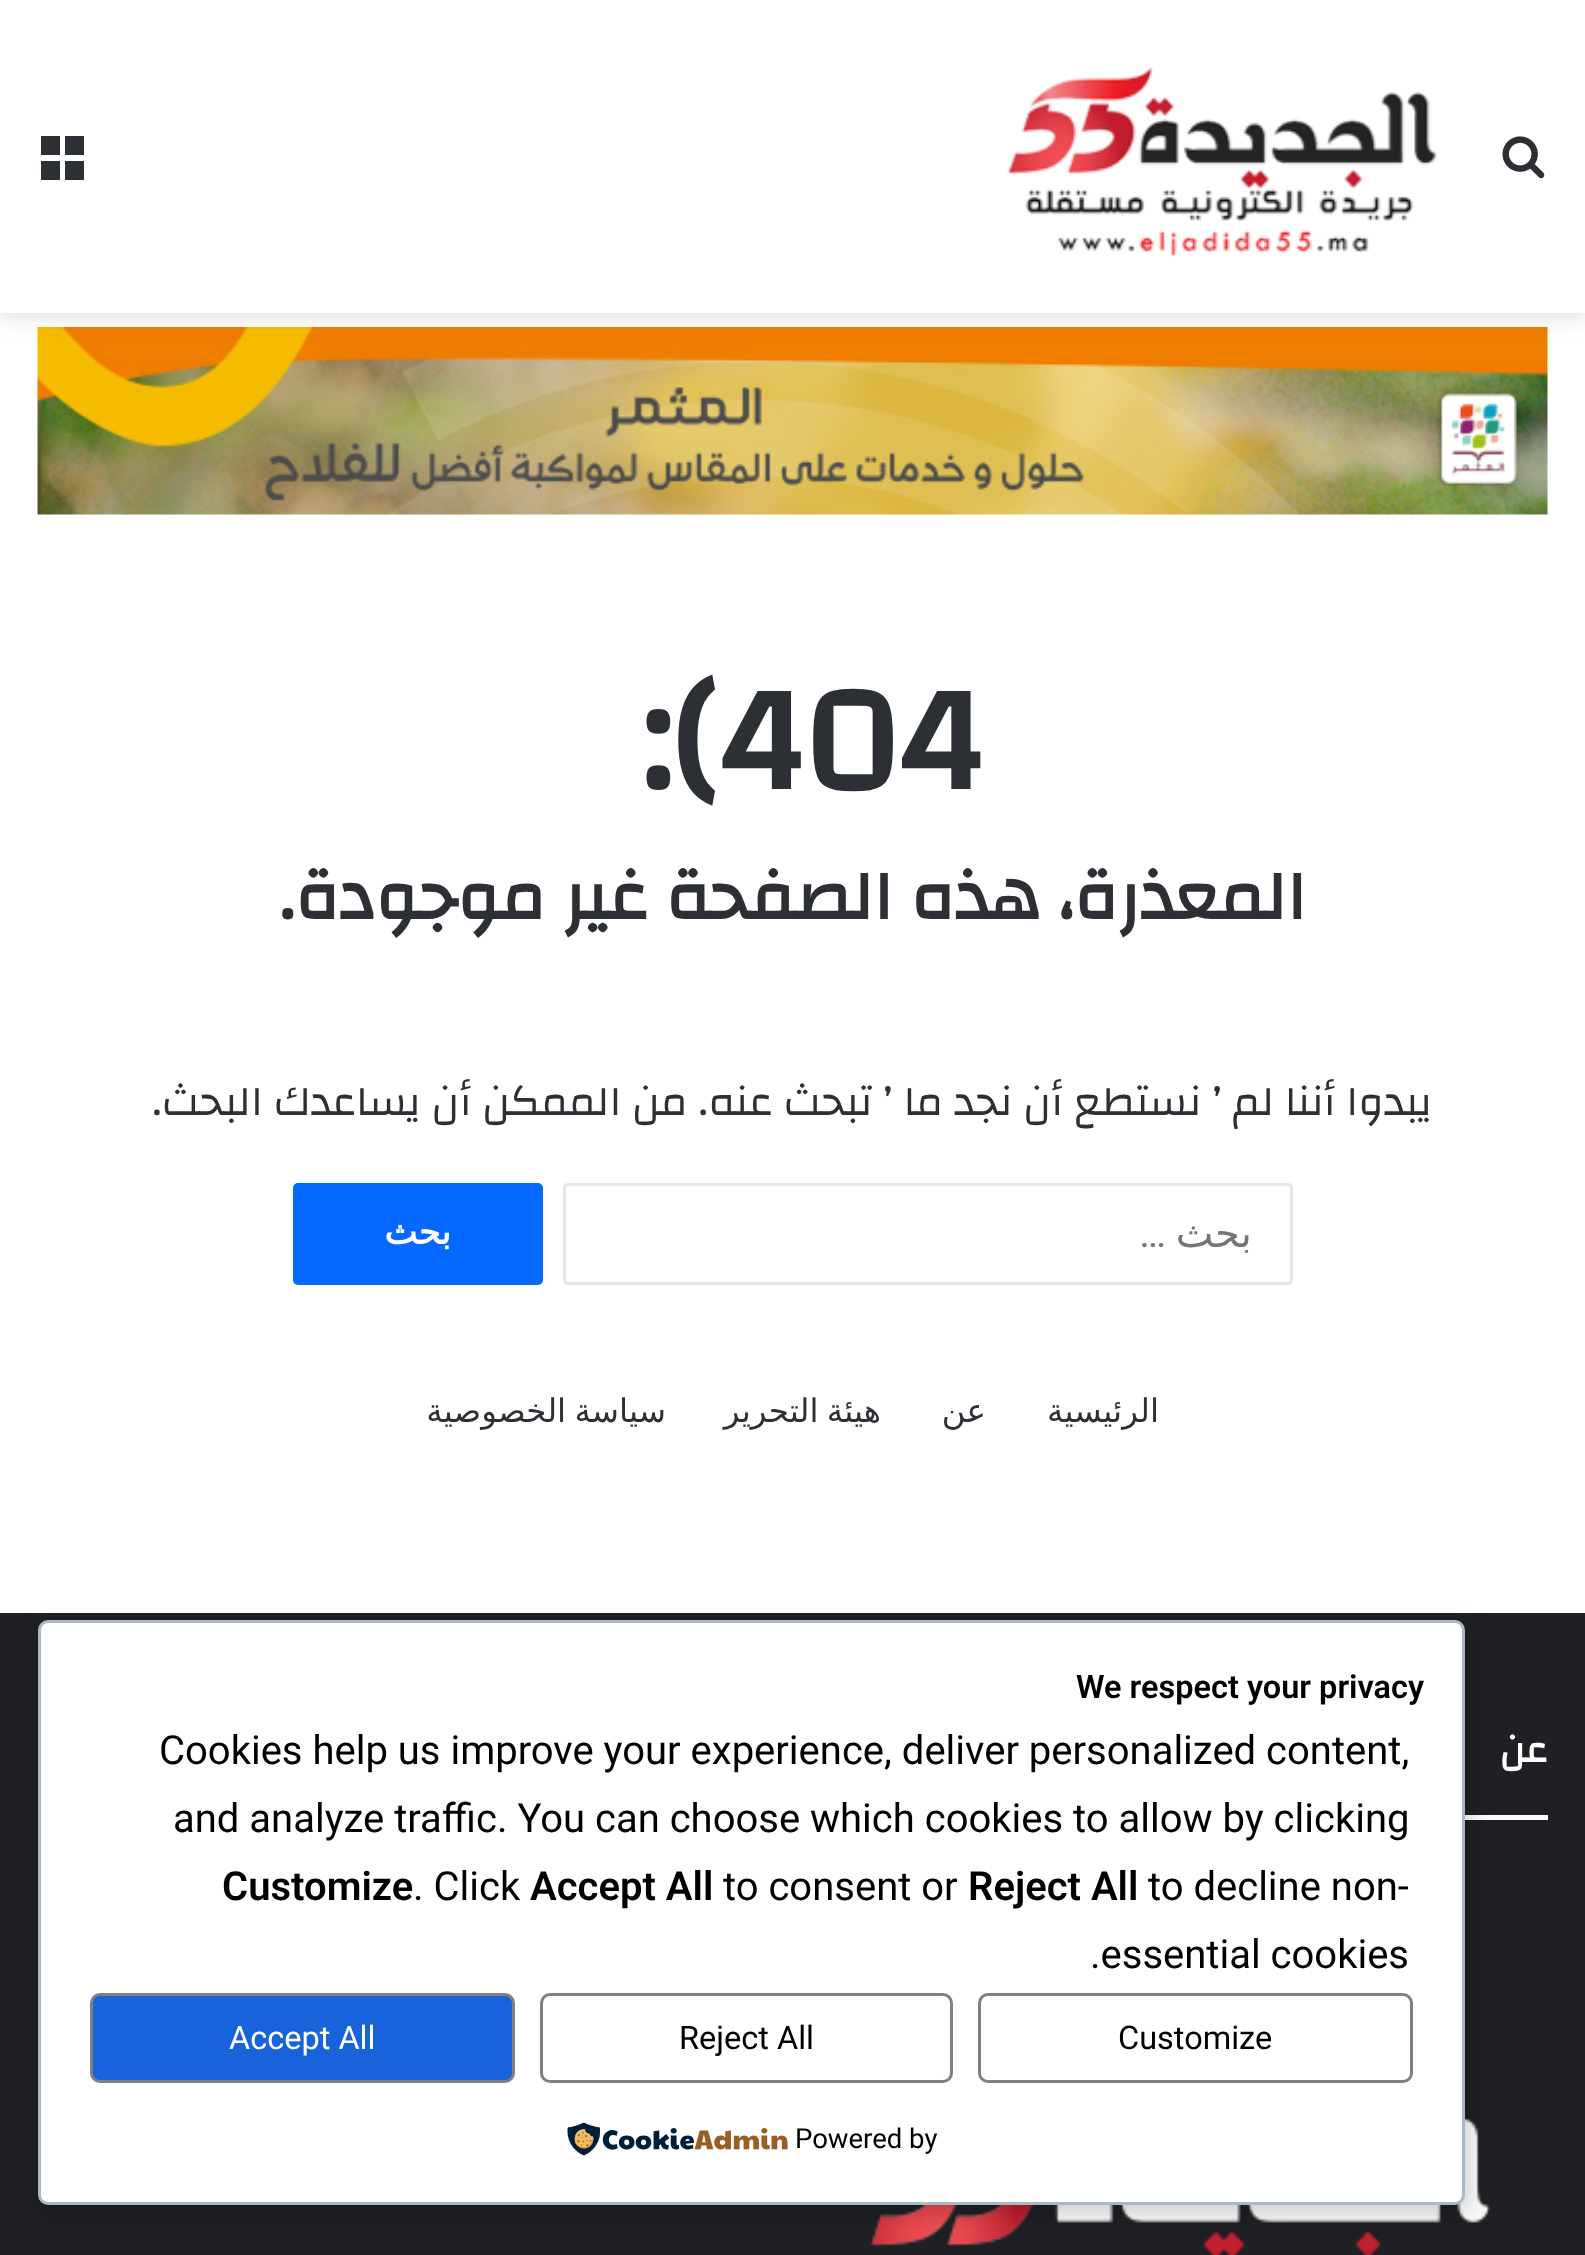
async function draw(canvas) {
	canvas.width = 1585;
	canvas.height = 2255;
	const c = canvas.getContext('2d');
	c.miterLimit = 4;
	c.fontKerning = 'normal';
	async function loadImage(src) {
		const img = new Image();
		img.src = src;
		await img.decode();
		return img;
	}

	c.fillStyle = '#fff';
	c.fillRect(0, 0, 1585, 2255);
	c.drawImage(await loadImage('img3.png'), 37, 327, 1511, 188);
	c.save();
	c.beginPath();
	c.moveTo(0, 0);
	c.lineTo(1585, 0);
	c.lineTo(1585, 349);
	c.lineTo(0, 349);
	c.closePath();
	c.moveTo(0, 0);
	c.lineTo(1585, 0);
	c.lineTo(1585, 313);
	c.lineTo(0, 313);
	c.closePath();
	c.clip('evenodd');
	c.fillStyle = '#63636333';
	c.filter = 'blur(10px)';
	c.beginPath();
	c.rect(0, 5, 1585, 313);
	c.fill();
	c.filter = 'none';
	c.restore();
	c.fillStyle = '#fffffff2';
	c.fillRect(0, 312, 1585, 1);
	c.fillStyle = '#2c2f34';
	c.beginPath();
	c.moveTo(41, 155);
	c.lineTo(60, 155);
	c.lineTo(60, 136);
	c.lineTo(41, 136);
	c.closePath();
	c.moveTo(65, 136);
	c.lineTo(65, 155);
	c.lineTo(84, 155);
	c.lineTo(84, 136);
	c.closePath();
	c.moveTo(65, 180);
	c.lineTo(84, 180);
	c.lineTo(84, 161);
	c.lineTo(65, 161);
	c.closePath();
	c.moveTo(41, 180);
	c.lineTo(60, 180);
	c.lineTo(60, 161);
	c.lineTo(41, 161);
	c.closePath();
	c.fill();
	c.drawImage(await loadImage('img1.png'), 1007, 67, 431, 189);
	c.drawImage(await loadImage('img2.png'), 1502, 136, 43, 43);
	c.font = 'bold 150px Changa';
	c.fillText(':(404', 639, 789);
	c.direction = 'rtl';
	c.font = 'bold 70px Changa';
	c.fillText('المعذرة، هذه الصفحة غير موجودة.', 1306, 919);
	c.font = '42.5px Changa';
	c.fillText('يبدوا أننا لم ’ نستطع أن نجد ما ’ تبحث عنه. من الممكن أن يساعدك البحث.', 1432, 1115);
	c.fillStyle = '#0669ff';
	c.beginPath();
	c.roundRect(293, 1183, 250, 102, 5);
	c.fill();
	c.font = 'bold 35px DejaVu Sans';
	c.fillStyle = '#fff';
	c.fillText('بحث', 451, 1244);
	c.beginPath();
	c.roundRect(564.5, 1184.5, 727, 99, 3.5);
	c.strokeStyle = '#e6e6e6';
	c.lineWidth = 3;
	c.stroke();
	c.font = '40px Roboto';
	c.fillStyle = '#757575';
	c.fillText('…', 1166, 1247);
	c.font = '40px DejaVu Sans';
	c.fillText('بحث', 1252, 1247);
	c.wordSpacing = '-2px';
	c.font = '32.5px DejaVu Sans';
	c.fillStyle = '#2c2f34';
	c.fillText('سياسة الخصوصية', 666, 1422);
	c.fillText('هيئة التحرير', 881, 1422);
	c.wordSpacing = '0px';
	c.fillText('عن', 986, 1422);
	c.fillText('الرئيسية', 1159, 1422);
	c.fillStyle = '#1f2024';
	c.fillRect(0, 1613, 1585, 642);
	c.font = 'bold 38px Changa';
	c.fillStyle = '#fff';
	c.fillText('عن', 1547, 1762);
	c.fillStyle = '#fdfdfd';
	c.fillRect(1465, 1815, 83, 5);
	c.drawImage(await loadImage('img4.png'), 869, 2118, 622, 137);
	c.fillStyle = '#00000033';
	c.filter = 'blur(12.5px)';
	c.beginPath();
	c.roundRect(40, 1628, 1428, 585, 10);
	c.fill();
	c.filter = 'none';
	c.fillStyle = '#fff';
	c.beginPath();
	c.roundRect(39.5, 1621.5, 1424, 582, 8.5);
	c.fill();
	c.strokeStyle = '#abb8c3';
	c.stroke();
	c.direction = 'ltr';
	c.font = '600 32.5px Roboto';
	c.fillStyle = '#000';
	c.fillText('We respect your privacy', 1076, 1698);
	c.font = '40px Roboto';
	c.fillText('Cookies help us improve your experience, deliver personalized content,', 159, 1764);
	c.fillText('and analyze traffic. You can choose which cookies to allow by clicking', 173, 1832);
	c.font = '600 40px "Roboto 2"';
	c.fillText('Customize', 222, 1900);
	c.font = '40px Roboto';
	c.fillText('. Click', 413, 1900);
	c.font = '600 40px "Roboto 2"';
	c.fillText('Accept All', 530, 1900);
	c.font = '40px Roboto';
	c.fillText('to consent or', 723, 1900);
	c.font = '600 40px "Roboto 2"';
	c.fillText('Reject All', 968, 1900);
	c.font = '40px Roboto';
	c.fillText('to decline non-', 1148, 1900);
	c.fillText('.essential cookies', 1090, 1968);
	c.fillStyle = '#1863dc';
	c.beginPath();
	c.roundRect(91.5, 1994.5, 422, 87, 8.5);
	c.fill();
	c.strokeStyle = '#808080';
	c.stroke();
	c.font = '32.5px Roboto';
	c.fillStyle = '#fff';
	c.fillText('Accept All', 229, 2049);
	c.beginPath();
	c.roundRect(541.5, 1994.5, 410, 87, 8.5);
	c.stroke();
	c.fillStyle = '#000';
	c.fillText('Reject All', 679, 2049);
	c.beginPath();
	c.roundRect(979.5, 1994.5, 432, 87, 8.5);
	c.stroke();
	c.fillText('Customize', 1118, 2049);
	c.drawImage(await loadImage('img5.png'), 567, 2122, 221, 34);
	c.font = '27.5px Roboto';
	c.fillText('Powered by', 795, 2148);
}

draw(document.querySelector('canvas'));
